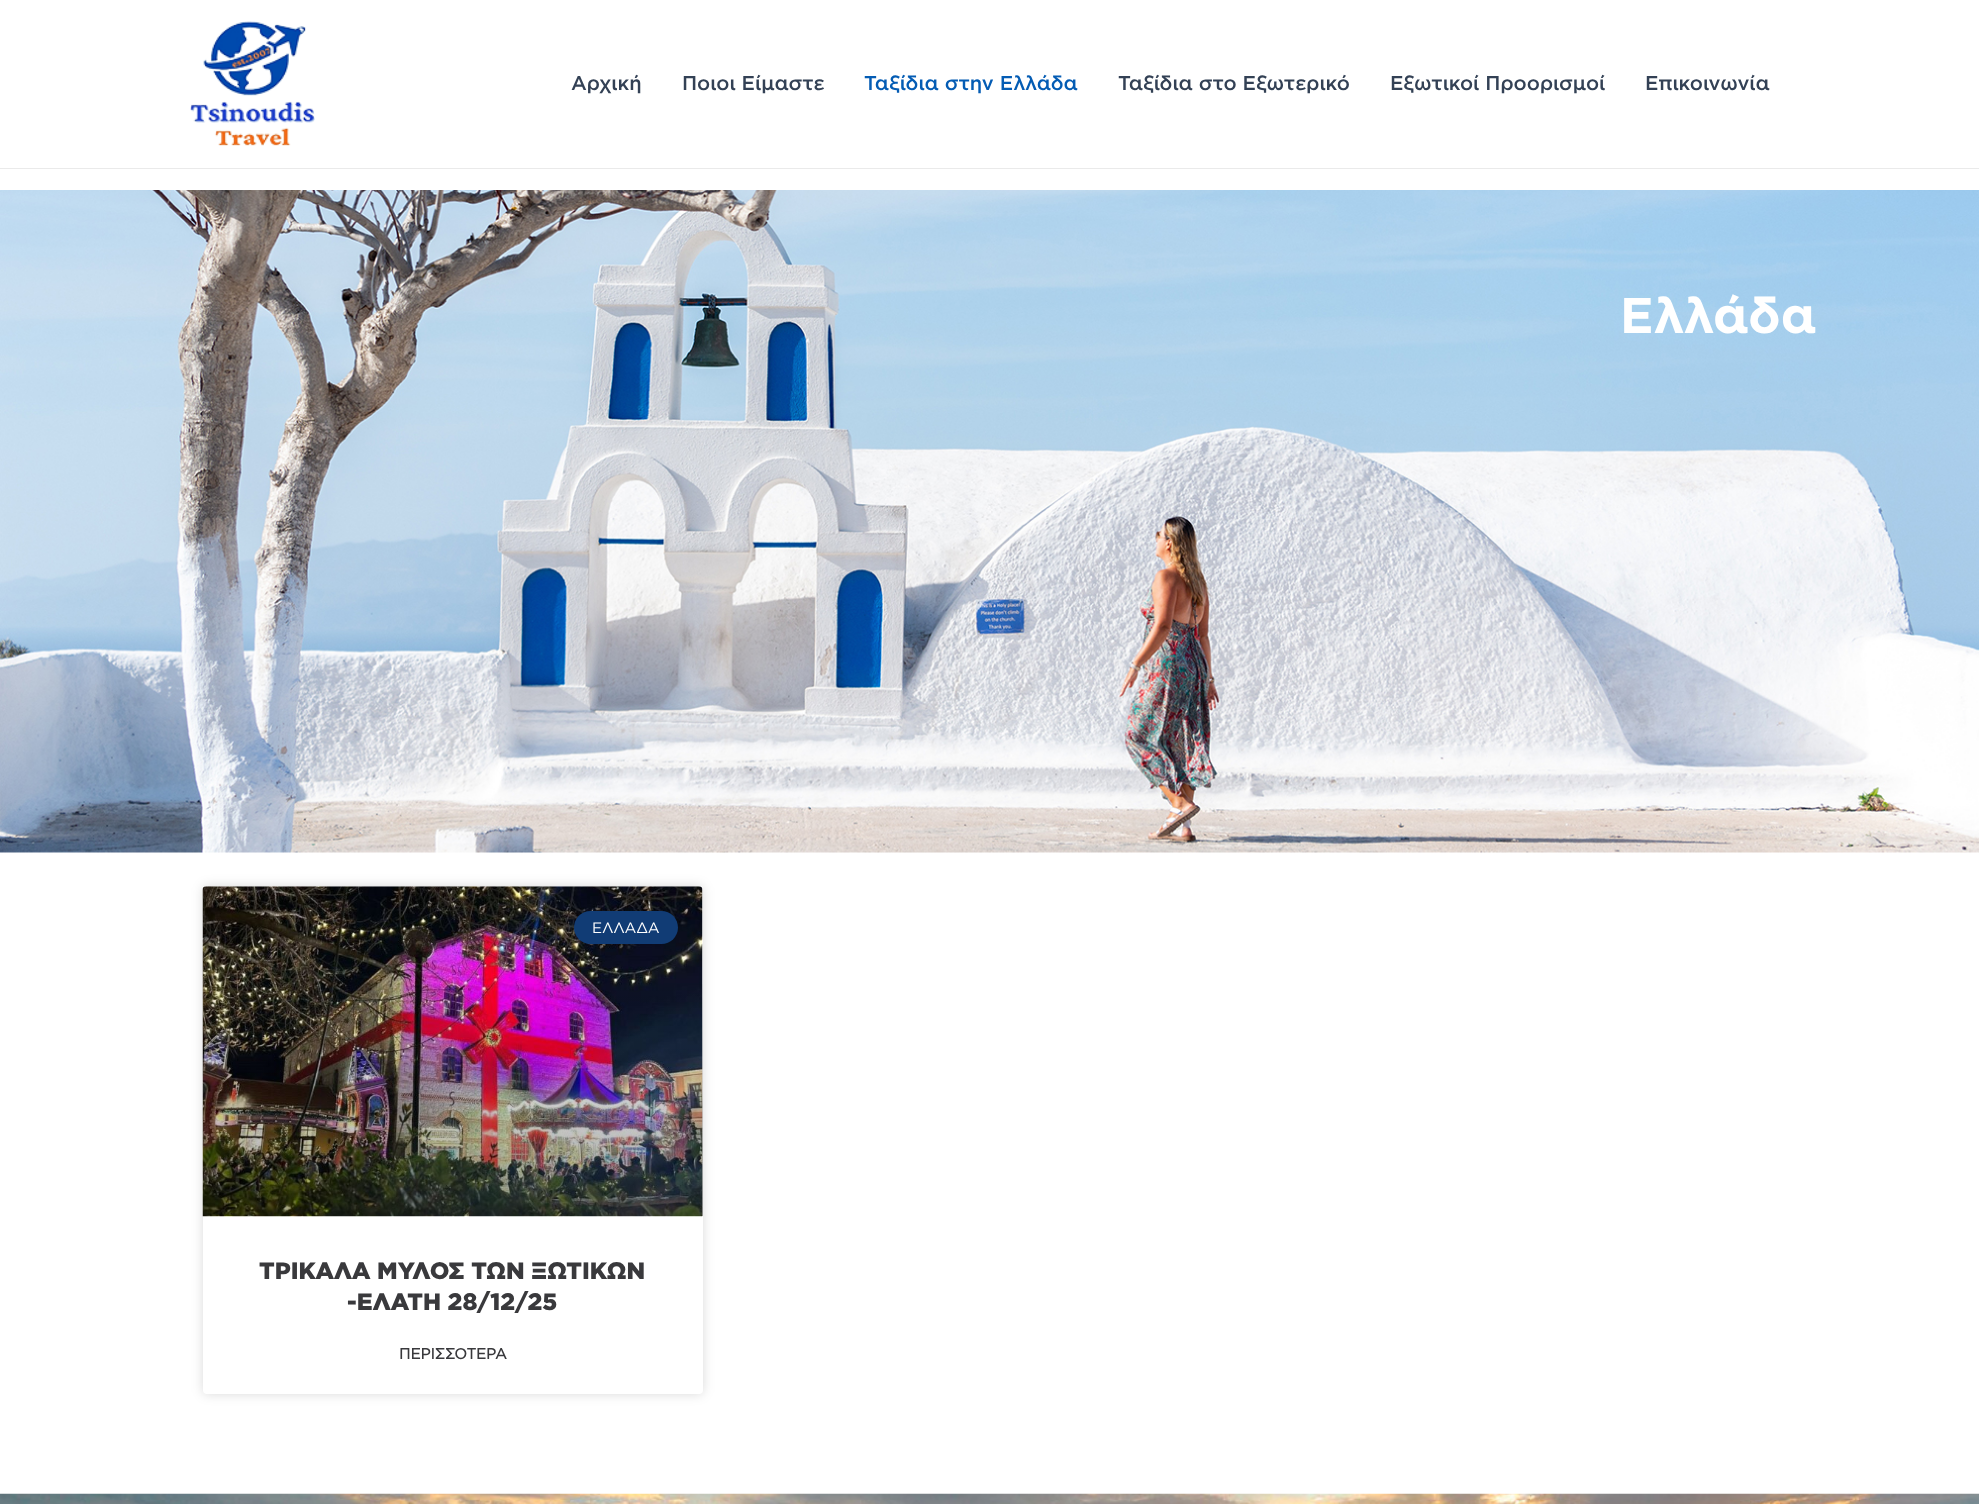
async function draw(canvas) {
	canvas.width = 1979;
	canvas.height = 1504;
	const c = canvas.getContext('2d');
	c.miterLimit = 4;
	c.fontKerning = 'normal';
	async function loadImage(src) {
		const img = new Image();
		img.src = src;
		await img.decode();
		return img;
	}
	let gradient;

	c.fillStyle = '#fff';
	c.fillRect(0, 0, 1979, 1504);
	c.fillStyle = '#eaeaea';
	c.fillRect(0, 168, 1979, 1);
	c.drawImage(await loadImage('img1.png'), 190, 21, 125, 125);
	c.font = '500 20px Gotham';
	c.fillStyle = '#334155';
	c.fillText('Αρχική', 571, 90);
	c.fillText('Ποιοι Είμαστε', 682, 90);
	c.fillStyle = '#045cb4';
	c.fillText('Ταξίδια στην Ελλάδα', 864, 90);
	c.fillStyle = '#334155';
	for (const [text, x, y] of [
		['Ταξίδια στο Εξωτερικό', 1118, 90],
		['Εξωτικοί Προορισμοί', 1390, 90],
		['Επικοινωνία', 1645, 90],
	]) {
		c.fillText(text, x, y);
	}
	c.drawImage(await loadImage('img2.png'), 0, 190, 1979, 663);
	c.font = 'bold 50px Gotham';
	c.fillStyle = '#fff';
	c.fillText('Ελλάδα', 1620, 333);
	c.fillStyle = '#00000026';
	c.filter = 'blur(6px)';
	c.beginPath();
	c.roundRect(203, 886, 500, 508, 4);
	c.fill();
	c.filter = 'none';
	c.fillStyle = '#fff';
	c.beginPath();
	c.roundRect(203, 886, 500, 508, 4);
	c.fill();
	c.drawImage(await loadImage('img3.png'), 202, 886, 501, 331);
	gradient = c.createLinearGradient(453, 1216, 453, 886);
	gradient.addColorStop(0, '#00000059');
	gradient.addColorStop(0.75, '#00000000');
	c.fillStyle = gradient;
	c.fillRect(203, 984, 500, 232);
	c.fillStyle = '#113c75';
	c.beginPath();
	c.roundRect(574, 911, 104, 33, 16.5);
	c.fill();
	c.font = '15px Gotham';
	c.fillStyle = '#fff';
	c.fillText('ΕΛΛΑΔΑ', 592, 933);
	c.font = '900 23.75px Gotham';
	c.fillStyle = '#39393c';
	c.fillText('ΤΡΙΚΑΛΑ ΜΥΛΟΣ ΤΩΝ ΞΩΤΙΚΩΝ', 259, 1279);
	c.fillText('-ΕΛΑΤΗ 28/12/25', 347, 1310);
	c.font = 'bold 15px "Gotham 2"';
	c.fillText('ΠΕΡΙΣΣΟΤΕΡΑ', 399, 1359);
	c.drawImage(await loadImage('img4.png'), 0, 1493, 1979, 11);
}

draw(document.querySelector('canvas'));
